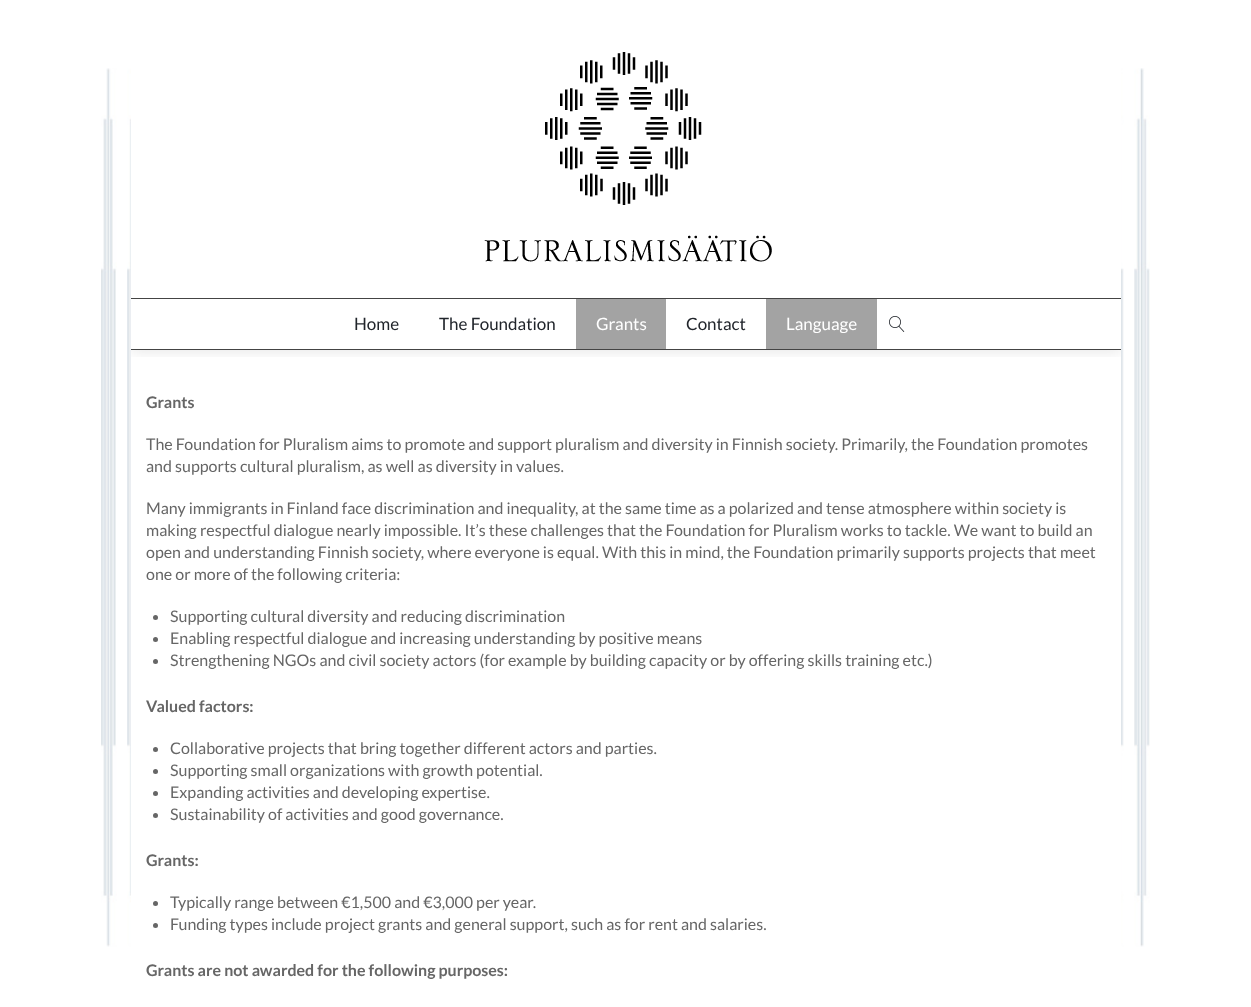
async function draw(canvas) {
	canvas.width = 1251;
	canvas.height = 1007;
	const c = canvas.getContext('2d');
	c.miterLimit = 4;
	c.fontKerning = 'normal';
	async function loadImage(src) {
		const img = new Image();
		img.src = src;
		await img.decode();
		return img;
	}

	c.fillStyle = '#fff';
	c.fillRect(0, 0, 1251, 1007);
	c.drawImage(await loadImage('img1.png'), 101, 68, 1049, 879);
	c.fillRect(131, 68, 990, 879);
	c.save();
	c.beginPath();
	c.rect(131, 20, 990, 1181);
	c.clip();
	c.beginPath();
	c.rect(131, 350, 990, 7);
	c.clip();
	c.fillStyle = '#0000001a';
	c.filter = 'blur(7.5px)';
	c.beginPath();
	c.rect(131, 21, 990, 330);
	c.fill();
	c.filter = 'none';
	c.restore();
	c.drawImage(await loadImage('img2.png'), 484, 52, 288, 210);
	c.fillStyle = '#444';
	c.fillRect(131, 298, 990, 1);
	c.fillRect(131, 349, 990, 1);
	c.font = '17px Lato';
	c.fillStyle = '#21252b';
	c.fillText('Home', 354, 330);
	c.fillText('The Foundation', 439, 330);
	c.fillStyle = '#a3a3a3';
	c.fillRect(576, 299, 90, 50);
	c.fillStyle = '#fff';
	c.fillText('Grants', 596, 330);
	c.fillStyle = '#21252b';
	c.fillText('Contact', 686, 330);
	c.fillStyle = '#a3a3a3';
	c.fillRect(766, 299, 111, 50);
	c.fillStyle = '#fff';
	c.fillText('Language', 786, 330);
	c.drawImage(await loadImage('img3.png'), 889, 316, 16, 16);
	c.font = 'bold 16px Lato';
	c.fillStyle = '#666';
	c.fillText('Grants', 146, 408);
	c.font = '16px Lato';
	for (const [text, x, y] of [
		['The Foundation for Pluralism aims to promote and support pluralism and diversity in Finnish society. Primarily, the Foundation promotes', 146, 450],
		['and supports cultural pluralism, as well as diversity in values.', 146, 472],
		['Many immigrants in Finland face discrimination and inequality, at the same time as a polarized and tense atmosphere within society is', 146, 514],
		['making respectful dialogue nearly impossible. It’s these challenges that the Foundation for Pluralism works to tackle. We want to build an', 146, 536],
		['open and understanding Finnish society, where everyone is equal. With this in mind, the Foundation primarily supports projects that meet', 146, 558],
		['one or more of the following criteria:', 146, 580],
	]) {
		c.fillText(text, x, y);
	}
	c.beginPath();
	c.arc(155.5, 617.5, 2.5, 0, 2 * Math.PI);
	c.fill();
	c.fillText('Supporting cultural diversity and reducing discrimination', 170, 622);
	c.beginPath();
	c.arc(155.5, 639.5, 2.5, 0, 2 * Math.PI);
	c.fill();
	c.fillText('Enabling respectful dialogue and increasing understanding by positive means', 170, 644);
	c.beginPath();
	c.arc(155.5, 661.5, 2.5, 0, 2 * Math.PI);
	c.fill();
	c.fillText('Strengthening NGOs and civil society actors (for example by building capacity or by offering skills training etc.)', 170, 666);
	c.font = 'bold 16px Lato';
	c.fillText('Valued factors:', 146, 712);
	c.beginPath();
	c.arc(155.5, 749.5, 2.5, 0, 2 * Math.PI);
	c.fill();
	c.font = '16px Lato';
	c.fillText('Collaborative projects that bring together different actors and parties.', 170, 754);
	c.beginPath();
	c.arc(155.5, 771.5, 2.5, 0, 2 * Math.PI);
	c.fill();
	c.fillText('Supporting small organizations with growth potential.', 170, 776);
	c.beginPath();
	c.arc(155.5, 793.5, 2.5, 0, 2 * Math.PI);
	c.fill();
	c.fillText('Expanding activities and developing expertise.', 170, 798);
	c.beginPath();
	c.arc(155.5, 815.5, 2.5, 0, 2 * Math.PI);
	c.fill();
	c.fillText('Sustainability of activities and good governance.', 170, 820);
	c.font = 'bold 16px Lato';
	c.fillText('Grants:', 146, 866);
	c.beginPath();
	c.arc(155.5, 903.5, 2.5, 0, 2 * Math.PI);
	c.fill();
	c.font = '16px Lato';
	c.fillText('Typically range between €1,500 and €3,000 per year.', 170, 908);
	c.beginPath();
	c.arc(155.5, 925.5, 2.5, 0, 2 * Math.PI);
	c.fill();
	c.fillText('Funding types include project grants and general support, such as for rent and salaries.', 170, 930);
	c.font = 'bold 16px Lato';
	c.fillText('Grants are not awarded for the following purposes:', 146, 976);
}

draw(document.querySelector('canvas'));
